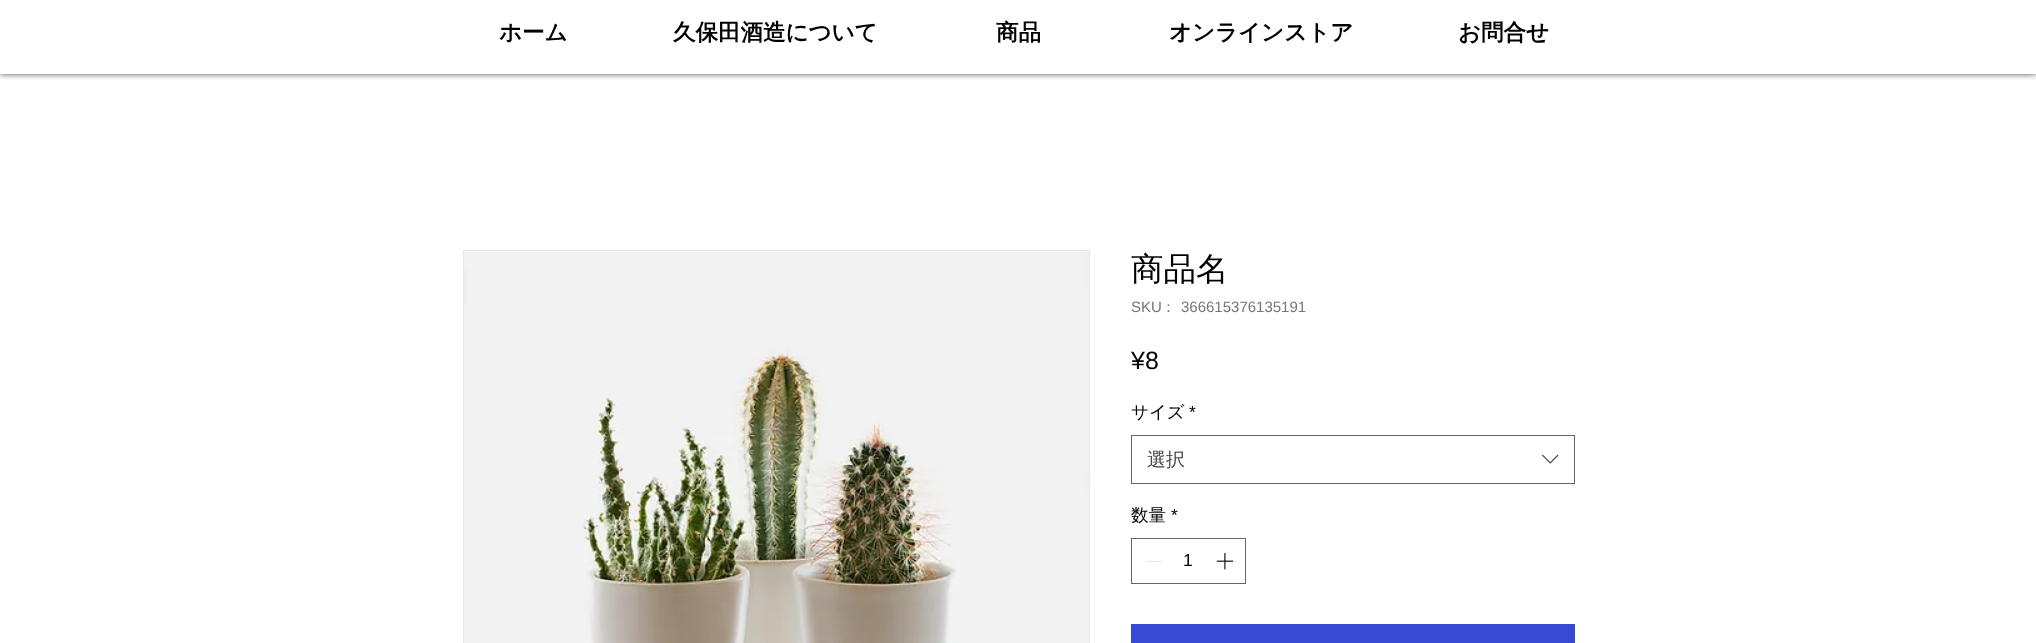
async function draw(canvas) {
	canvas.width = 2036;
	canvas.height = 643;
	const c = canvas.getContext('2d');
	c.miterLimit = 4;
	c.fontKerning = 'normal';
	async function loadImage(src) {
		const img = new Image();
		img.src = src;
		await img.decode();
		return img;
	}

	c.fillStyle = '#fff';
	c.fillRect(0, 0, 2036, 643);
	c.save();
	c.beginPath();
	c.moveTo(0, 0);
	c.lineTo(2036, 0);
	c.lineTo(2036, 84);
	c.lineTo(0, 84);
	c.closePath();
	c.moveTo(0, 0);
	c.lineTo(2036, 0);
	c.lineTo(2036, 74);
	c.lineTo(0, 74);
	c.closePath();
	c.clip('evenodd');
	c.fillStyle = '#000000b3';
	c.filter = 'blur(3px)';
	c.beginPath();
	c.rect(0, 0, 2036, 74);
	c.fill();
	c.filter = 'none';
	c.restore();
	c.fillStyle = '#ffffff99';
	c.fillRect(0, 73, 2036, 1);
	c.font = 'bold 22.5px WenQuanYi Zen Hei';
	c.fillStyle = '#000';
	for (const [text, x, y] of [
		['ホーム', 499, 40],
		['久保田酒造について', 673, 40],
		['商品', 996, 40],
		['オンラインストア', 1169, 40],
		['お問合せ', 1458, 40],
	]) {
		c.fillText(text, x, y);
	}
	c.strokeStyle = '#e8e6e6';
	c.strokeRect(463.5, 250.5, 626, 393);
	c.drawImage(await loadImage('img1.png'), 464, 251, 625, 392);
	c.font = '500 32.5px WenQuanYi Zen Hei';
	c.fillText('商品名', 1131, 280);
	c.font = '15px Liberation Sans';
	c.fillStyle = '#767676';
	c.fillText('SKU', 1131, 312);
	c.font = '500 15px WenQuanYi Zen Hei';
	c.fillText('：', 1161, 312);
	c.font = '15px Liberation Sans';
	c.fillText('366615376135191', 1181, 312);
	c.font = '25px Liberation Sans';
	c.fillStyle = '#000';
	c.fillText('¥8', 1131, 369);
	c.font = '500 17.5px WenQuanYi Zen Hei';
	c.fillText('サイズ', 1131, 418);
	c.font = '17.5px Liberation Sans';
	c.fillText('*', 1189, 418);
	c.strokeStyle = '#666';
	c.strokeRect(1131.5, 435.5, 443, 48);
	c.font = '500 19px WenQuanYi Zen Hei';
	c.fillStyle = '#444';
	c.fillText('選択', 1147, 466);
	c.drawImage(await loadImage('img2.png'), 1542, 454, 17, 10);
	c.font = '500 17.5px WenQuanYi Zen Hei';
	c.fillStyle = '#000';
	c.fillText('数量', 1131, 521);
	c.font = '17.5px Liberation Sans';
	c.fillText('*', 1171, 521);
	c.strokeRect(1131.5, 538.5, 114, 45);
	c.fillStyle = '#e3e3e3';
	c.fillRect(1146, 561, 16, 1);
	c.fillStyle = '#000';
	c.fillText('1', 1183, 566);
	c.drawImage(await loadImage('img3.png'), 1216, 553, 18, 17);
	c.fillStyle = '#384ad3';
	c.fillRect(1131, 624, 444, 19);
}

draw(document.querySelector('canvas'));
